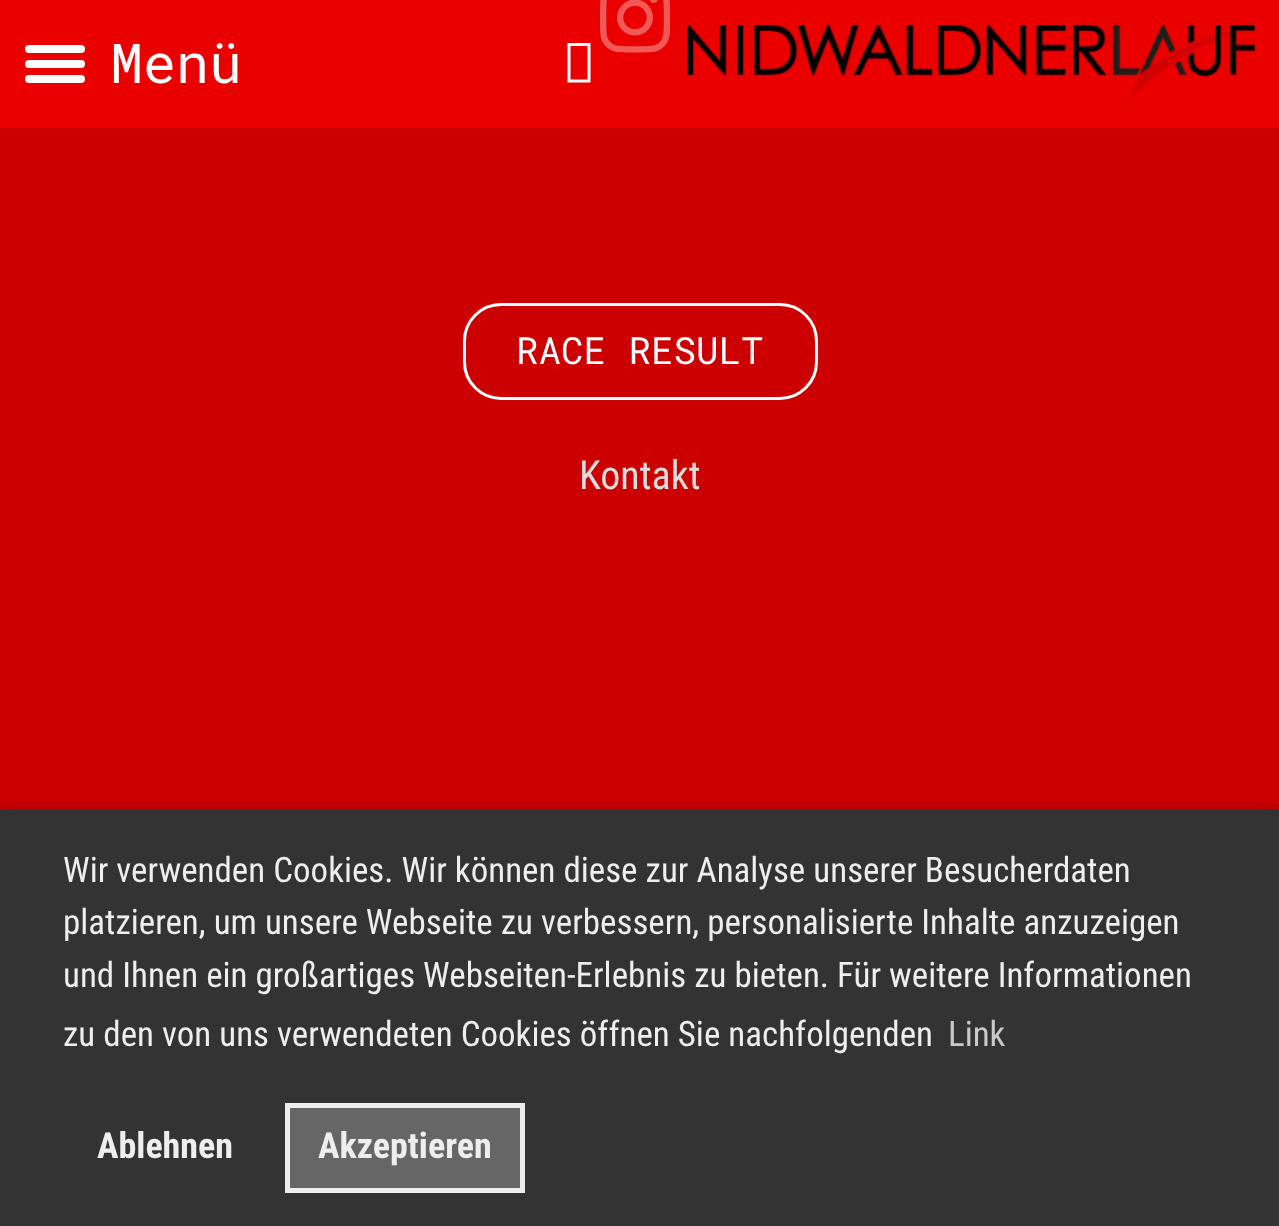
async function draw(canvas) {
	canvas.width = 1279;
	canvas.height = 1226;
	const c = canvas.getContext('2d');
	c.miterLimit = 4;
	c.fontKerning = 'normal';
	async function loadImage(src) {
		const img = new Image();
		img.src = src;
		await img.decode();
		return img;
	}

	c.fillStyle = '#c00';
	c.fillRect(0, 0, 1279, 1226);
	c.fillStyle = '#eb0000';
	c.fillRect(0, 0, 1279, 128);
	c.fillStyle = '#fff';
	c.beginPath();
	c.roundRect(25, 45, 60, 8, 4);
	c.fill();
	c.beginPath();
	c.roundRect(25, 60, 60, 8, 4);
	c.fill();
	c.beginPath();
	c.roundRect(25, 75, 60, 8, 4);
	c.fill();
	c.font = '55px Roboto Mono';
	c.fillText('Menü', 110, 83);
	c.beginPath();
	c.moveTo(567.5, 82.5);
	c.lineTo(567.5, 43);
	c.lineTo(590.5, 43);
	c.lineTo(590.5, 82.5);
	c.closePath();
	c.moveTo(570.5, 79.5);
	c.lineTo(587.5, 79.5);
	c.lineTo(587.5, 46);
	c.lineTo(570.5, 46);
	c.closePath();
	c.fill();
	c.drawImage(await loadImage('img1.png'), 687, 25, 568, 75);
	c.drawImage(await loadImage('img2.png'), 600, 0, 70, 53);
	c.beginPath();
	c.roundRect(464.5, 304.5, 352, 94, 36.5);
	c.strokeStyle = '#fff';
	c.lineWidth = 3;
	c.stroke();
	c.font = '37.5px Roboto Mono';
	c.fillText('RACE RESULT', 516, 364);
	c.font = '40px Roboto Condensed';
	c.fillStyle = '#ddd';
	c.fillText('Kontakt', 579, 489);
	c.fillStyle = '#0000004d';
	c.filter = 'blur(6px)';
	c.beginPath();
	c.rect(0, 810, 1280, 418);
	c.fill();
	c.filter = 'none';
	c.fillStyle = '#333';
	c.fillRect(0, 810, 1279, 416);
	c.font = '35px Roboto Condensed';
	c.fillStyle = '#eee';
	for (const [text, x, y] of [
		['Wir verwenden Cookies. Wir können diese zur Analyse unserer Besucherdaten', 63, 882],
		['platzieren, um unsere Webseite zu verbessern, personalisierte Inhalte anzuzeigen', 63, 934],
		['und Ihnen ein großartiges Webseiten-Erlebnis zu bieten. Für weitere Informationen', 63, 987],
		['zu den von uns verwendeten Cookies öffnen Sie nachfolgenden', 63, 1046],
	]) {
		c.fillText(text, x, y);
	}
	c.fillStyle = '#c9c9c9';
	c.fillText('Link', 948, 1046);
	c.font = 'bold 36px Roboto Condensed';
	c.fillStyle = '#eee';
	c.fillText('Ablehnen', 97, 1158);
	c.fillStyle = '#666';
	c.beginPath();
	c.rect(287.5, 1105.5, 235, 85);
	c.fill();
	c.strokeStyle = '#eee';
	c.lineWidth = 5;
	c.stroke();
	c.fillStyle = '#eee';
	c.fillText('Akzeptieren', 318, 1158);
}

draw(document.querySelector('canvas'));
